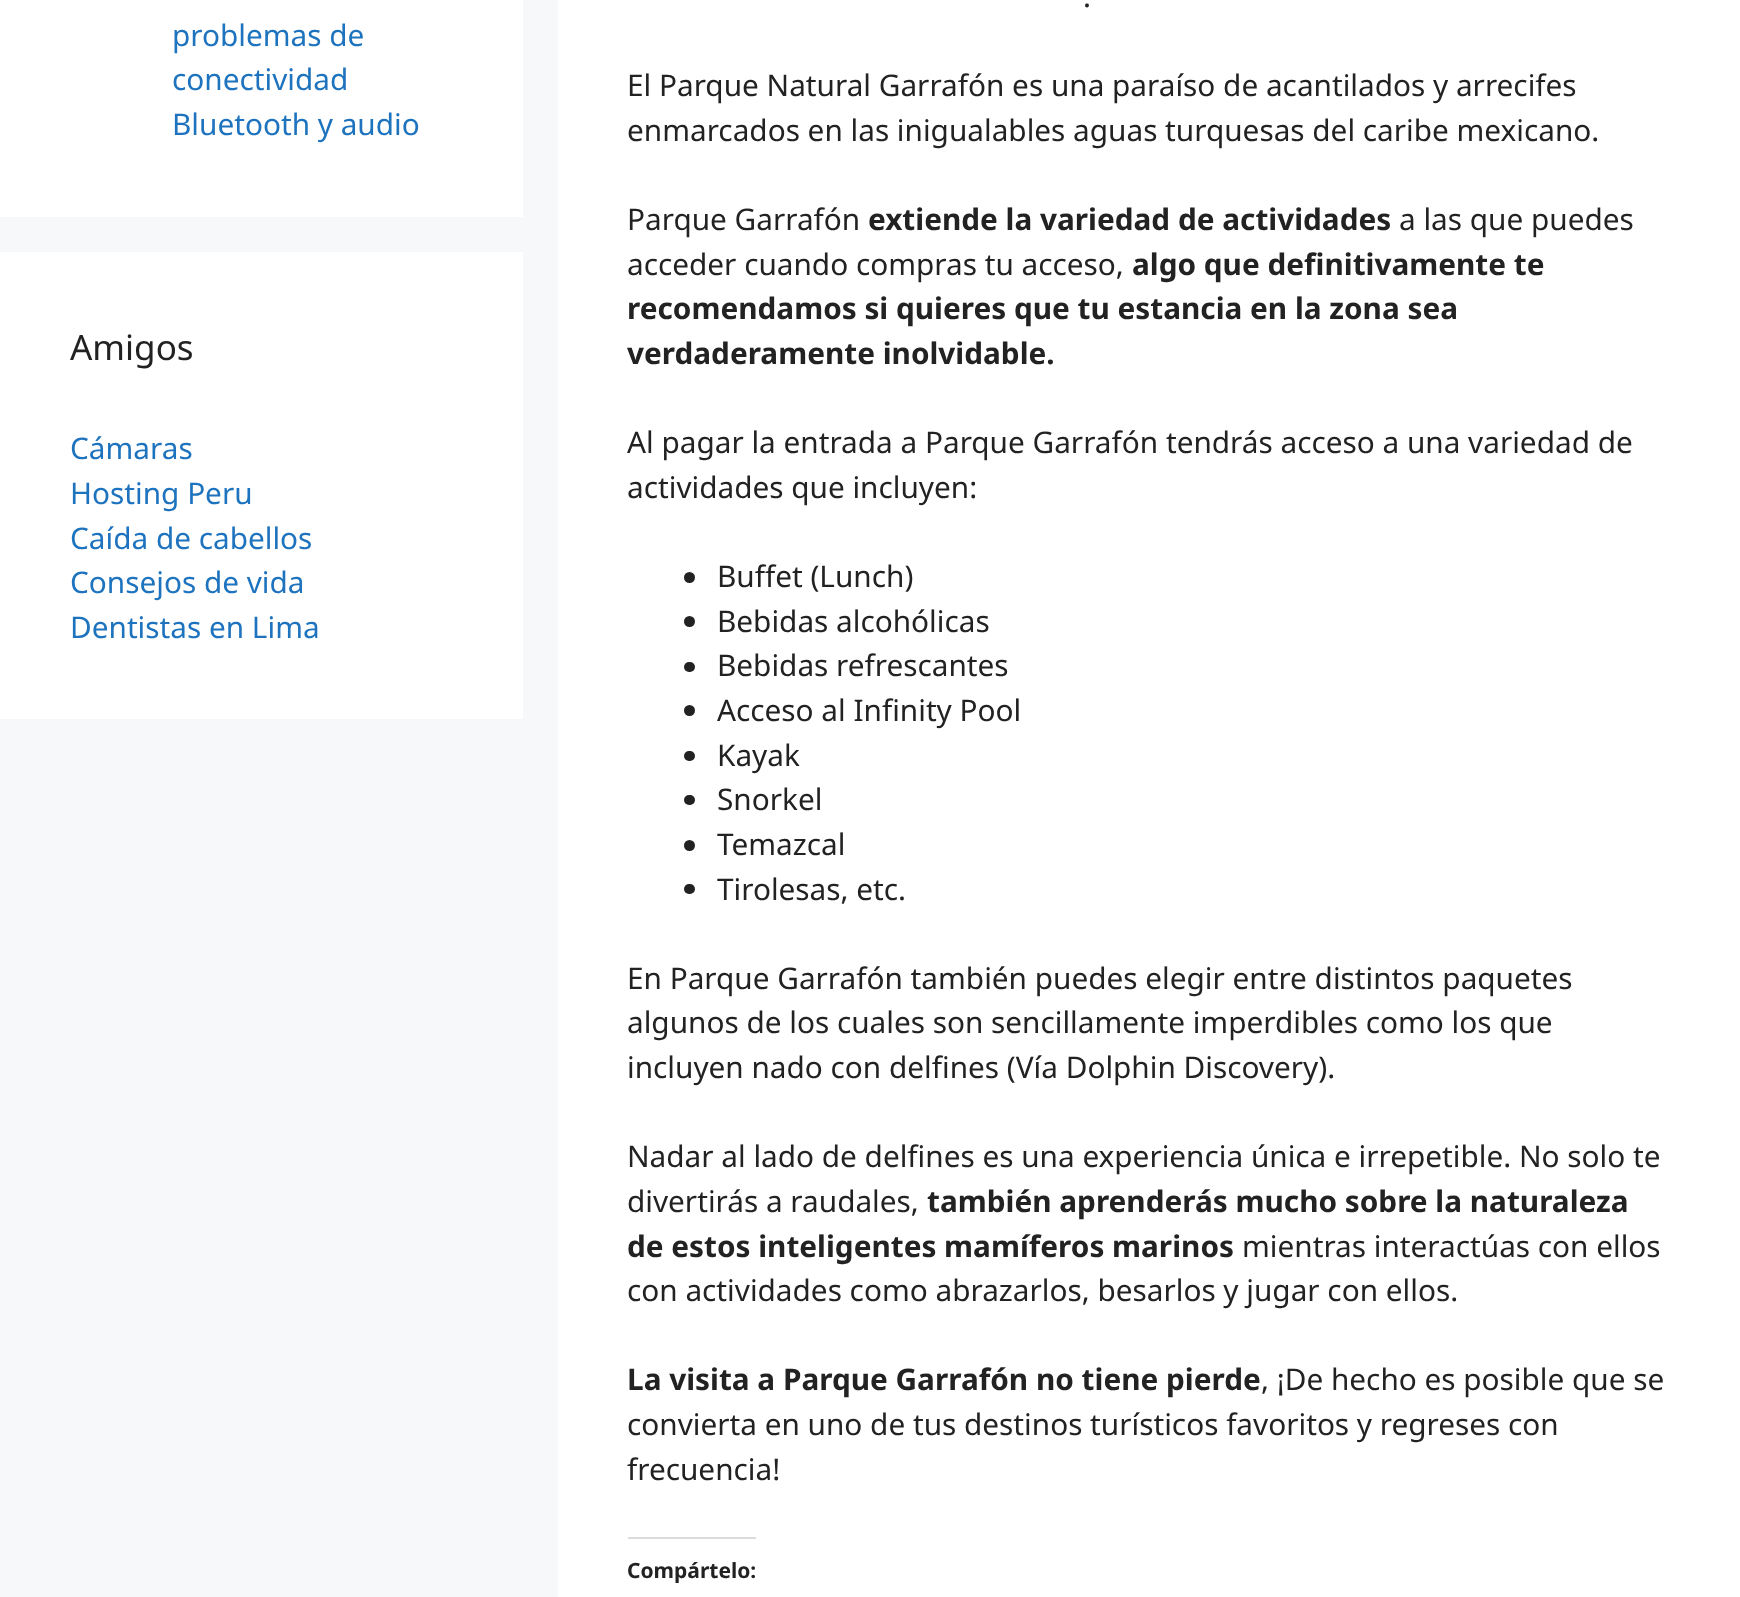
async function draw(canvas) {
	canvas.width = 1740;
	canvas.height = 1597;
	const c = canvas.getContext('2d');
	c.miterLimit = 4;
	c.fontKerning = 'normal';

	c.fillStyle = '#f7f8f9';
	c.fillRect(0, 0, 1740, 1597);
	c.fillStyle = '#fff';
	c.fillRect(0, 0, 523, 217);
	c.font = '29.75px Noto Sans';
	c.fillStyle = '#1e73be';
	for (const [text, x, y] of [
		['problemas de', 172, 46],
		['conectividad', 172, 90],
		['Bluetooth y audio', 172, 135],
	]) {
		c.fillText(text, x, y);
	}
	c.fillStyle = '#fff';
	c.fillRect(0, 252, 523, 467);
	c.font = '35px Noto Sans';
	c.fillStyle = '#222';
	c.fillText('Amigos', 70, 360);
	c.font = '29.75px Noto Sans';
	c.fillStyle = '#1e73be';
	for (const [text, x, y] of [
		['Cámaras', 70, 459],
		['Hosting Peru', 70, 504],
		['Caída de cabellos', 70, 549],
		['Consejos de vida', 70, 593],
		['Dentistas en Lima', 70, 638],
	]) {
		c.fillText(text, x, y);
	}
	c.fillStyle = '#fff';
	c.fillRect(558, 0, 1182, 1597);
	c.fillStyle = '#222';
	for (const [text, x, y] of [
		['.', 1083, 7],
		['El Parque Natural Garrafón es una paraíso de acantilados y arrecifes', 627, 96],
		['enmarcados en las inigualables aguas turquesas del caribe mexicano.', 627, 141],
		['Parque Garrafón', 627, 230],
	]) {
		c.fillText(text, x, y);
	}
	c.font = 'bold 29.75px Noto Sans';
	c.fillText('extiende la variedad de actividades', 868, 230);
	c.font = '29.75px Noto Sans';
	c.fillText('a las que puedes', 1399, 230);
	c.fillText('acceder cuando compras tu acceso,', 627, 275);
	c.font = 'bold 29.75px Noto Sans';
	for (const [text, x, y] of [
		['algo que definitivamente te', 1132, 275],
		['recomendamos si quieres que tu estancia en la zona sea', 627, 319],
		['verdaderamente inolvidable.', 627, 364],
	]) {
		c.fillText(text, x, y);
	}
	c.font = '29.75px Noto Sans';
	c.fillText('Al pagar la entrada a Parque Garrafón tendrás acceso a una variedad de', 627, 453);
	c.fillText('actividades que incluyen:', 627, 498);
	c.beginPath();
	c.arc(689.5, 577.5, 5.5, 0, 2 * Math.PI);
	c.fill();
	c.fillText('Buffet (Lunch)', 717, 587);
	c.beginPath();
	c.arc(689.5, 621.5, 5.5, 0, 2 * Math.PI);
	c.fill();
	c.fillText('Bebidas alcohólicas', 717, 632);
	c.beginPath();
	c.roundRect(684, 662, 11, 10, 5);
	c.fill();
	c.fillText('Bebidas refrescantes', 717, 676);
	c.beginPath();
	c.arc(689.5, 710.5, 5.5, 0, 2 * Math.PI);
	c.fill();
	c.fillText('Acceso al Infinity Pool', 717, 721);
	c.beginPath();
	c.roundRect(684, 751, 11, 10, 5);
	c.fill();
	c.fillText('Kayak', 717, 766);
	c.beginPath();
	c.roundRect(684, 795, 11, 10, 5);
	c.fill();
	c.fillText('Snorkel', 717, 810);
	c.beginPath();
	c.arc(689.5, 845.5, 5.5, 0, 2 * Math.PI);
	c.fill();
	c.fillText('Temazcal', 717, 855);
	c.beginPath();
	c.roundRect(684, 884, 11, 10, 5);
	c.fill();
	for (const [text, x, y] of [
		['Tirolesas, etc.', 717, 900],
		['En Parque Garrafón también puedes elegir entre distintos paquetes', 627, 989],
		['algunos de los cuales son sencillamente imperdibles como los que', 627, 1033],
		['incluyen nado con delfines (Vía Dolphin Discovery).', 627, 1078],
		['Nadar al lado de delfines es una experiencia única e irrepetible. No solo te', 627, 1167],
		['divertirás a raudales,', 627, 1212],
	]) {
		c.fillText(text, x, y);
	}
	c.font = 'bold 29.75px Noto Sans';
	c.fillText('también aprenderás mucho sobre la naturaleza', 927, 1212);
	c.fillText('de estos inteligentes mamíferos marinos', 627, 1257);
	c.font = '29.75px Noto Sans';
	c.fillText('mientras interactúas con ellos', 1242, 1257);
	c.fillText('con actividades como abrazarlos, besarlos y jugar con ellos.', 627, 1301);
	c.font = 'bold 29.75px Noto Sans';
	c.fillText('La visita a Parque Garrafón no tiene pierde', 627, 1390);
	c.font = '29.75px Noto Sans';
	for (const [text, x, y] of [
		[', ¡De hecho es posible que se', 1261, 1390],
		['convierta en uno de tus destinos turísticos favoritos y regreses con', 627, 1435],
		['frecuencia!', 627, 1480],
	]) {
		c.fillText(text, x, y);
	}
	c.fillStyle = '#dcdcde';
	c.fillRect(628, 1537, 128, 2);
	c.font = 'bold 21px Noto Sans';
	c.fillStyle = '#222';
	c.fillText('Compártelo:', 627, 1578);
}

draw(document.querySelector('canvas'));
